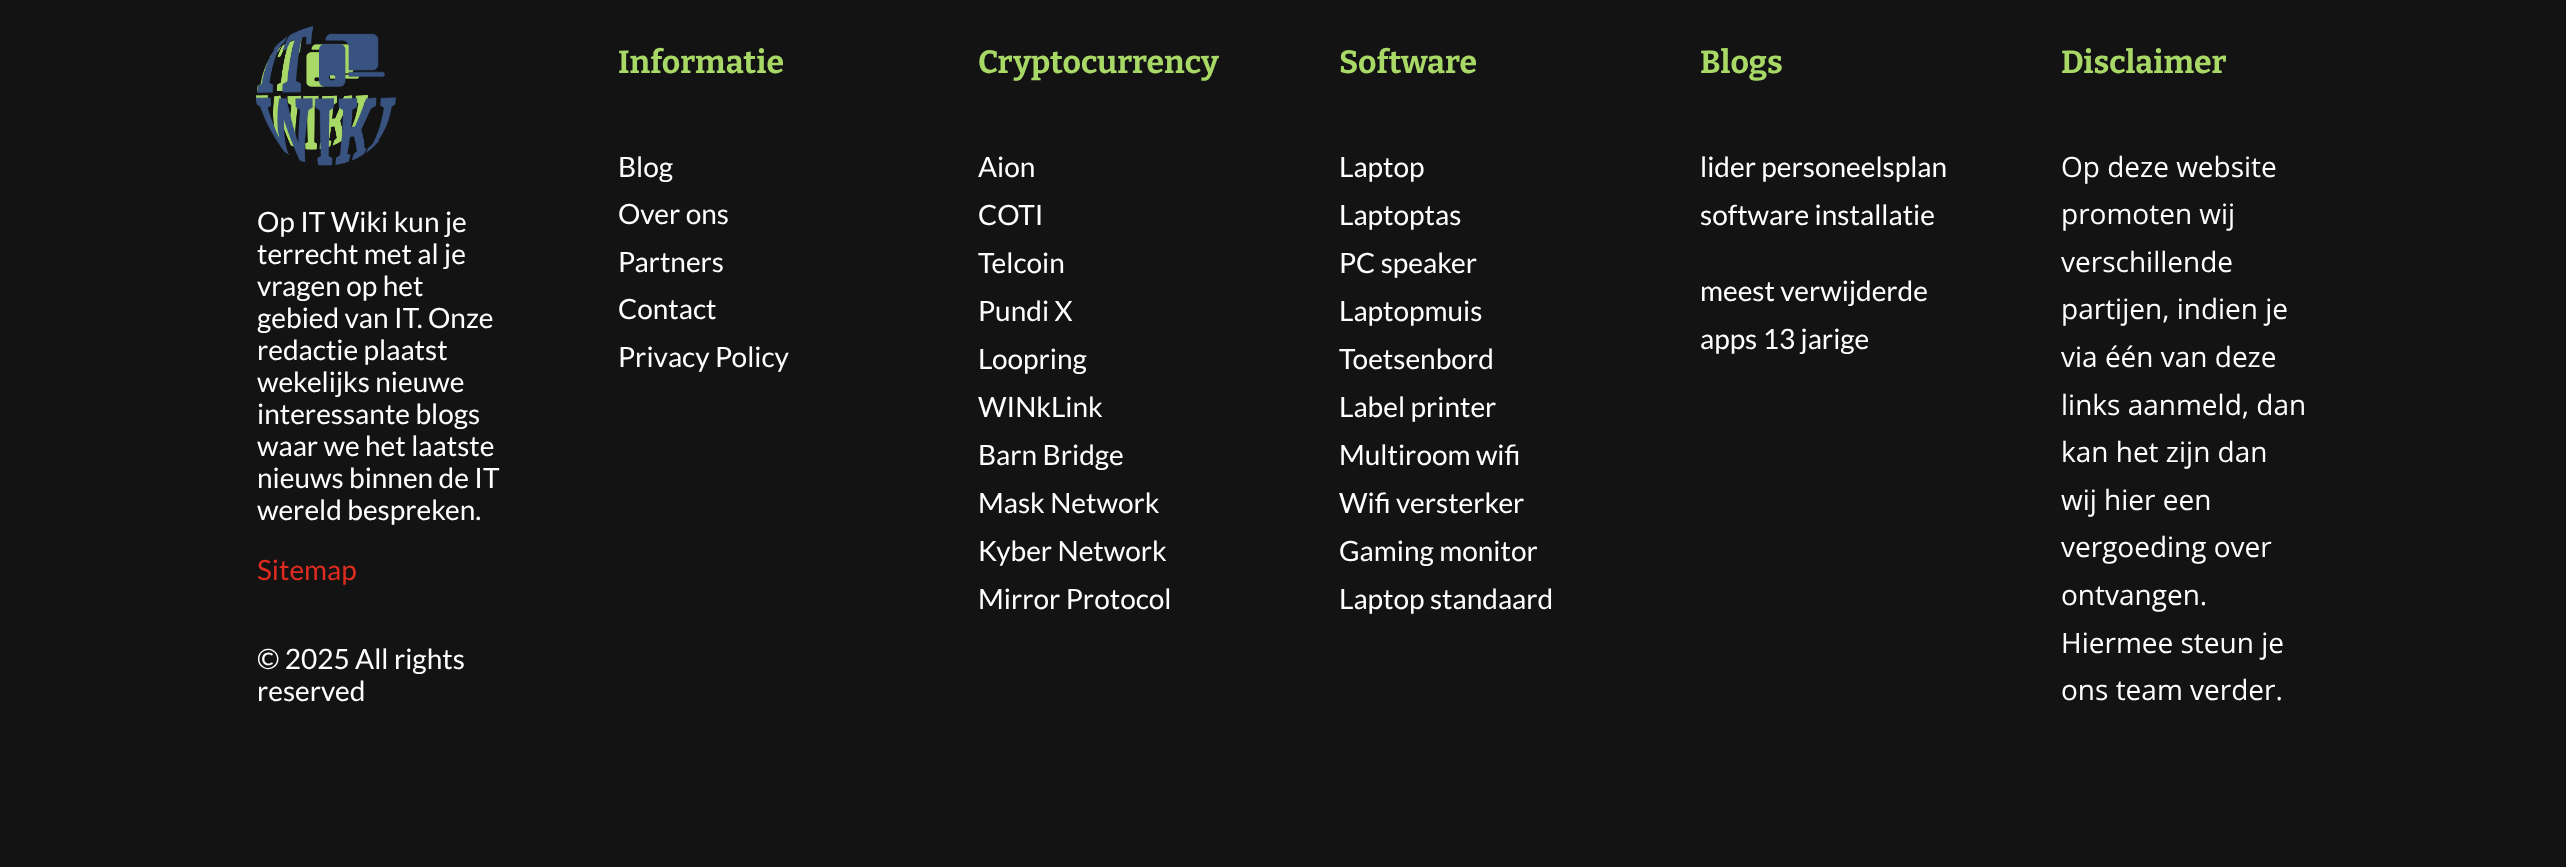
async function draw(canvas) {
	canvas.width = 2566;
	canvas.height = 867;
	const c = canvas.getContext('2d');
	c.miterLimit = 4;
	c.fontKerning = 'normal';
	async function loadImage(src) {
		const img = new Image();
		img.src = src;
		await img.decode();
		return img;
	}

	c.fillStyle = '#131313';
	c.fillRect(0, 0, 2566, 867);
	c.drawImage(await loadImage('img2.png'), 256, 38, 112, 112);
	c.drawImage(await loadImage('img1.png'), 256, 26, 140, 140);
	c.font = '28px Lato';
	c.fillStyle = '#fff';
	for (const [text, x, y] of [
		['Op IT Wiki kun je', 257, 232],
		['terrecht met al je', 257, 264],
		['vragen op het', 257, 296],
		['gebied van IT. Onze', 257, 328],
		['redactie plaatst', 257, 360],
		['wekelijks nieuwe', 257, 392],
		['interessante blogs', 257, 424],
		['waar we het laatste', 257, 456],
		['nieuws binnen de IT', 257, 488],
		['wereld bespreken.', 257, 520],
	]) {
		c.fillText(text, x, y);
	}
	c.fillStyle = '#e02b20';
	c.fillText('Sitemap', 257, 580);
	c.fillStyle = '#fff';
	c.fillText('© 2025 All rights', 257, 669);
	c.fillText('reserved', 257, 701);
	c.font = 'bold 32px Bitter';
	c.fillStyle = '#a8d966';
	c.fillText('Informatie', 618, 73);
	c.font = '28px Lato';
	c.fillStyle = '#fff';
	for (const [text, x, y] of [
		['Blog', 618, 177],
		['Over ons', 618, 224],
		['Partners', 618, 272],
		['Contact', 618, 319],
		['Privacy Policy', 618, 367],
	]) {
		c.fillText(text, x, y);
	}
	c.font = 'bold 32px Bitter';
	c.fillStyle = '#a8d966';
	c.fillText('Cryptocurrency', 978, 73);
	c.font = '28px Lato';
	c.fillStyle = '#fff';
	for (const [text, x, y] of [
		['Aion', 978, 177],
		['COTI', 978, 225],
		['Telcoin', 978, 273],
		['Pundi X', 978, 321],
		['Loopring', 978, 369],
		['WINkLink', 978, 417],
		['Barn Bridge', 978, 465],
		['Mask Network', 978, 513],
		['Kyber Network', 978, 561],
		['Mirror Protocol', 978, 609],
	]) {
		c.fillText(text, x, y);
	}
	c.font = 'bold 32px Bitter';
	c.fillStyle = '#a8d966';
	c.fillText('Software', 1339, 73);
	c.font = '28px Lato';
	c.fillStyle = '#fff';
	for (const [text, x, y] of [
		['Laptop', 1339, 177],
		['Laptoptas', 1339, 225],
		['PC speaker', 1339, 273],
		['Laptopmuis', 1339, 321],
		['Toetsenbord', 1339, 369],
		['Label printer', 1339, 417],
		['Multiroom wifi', 1339, 465],
		['Wifi versterker', 1339, 513],
		['Gaming monitor', 1339, 561],
		['Laptop standaard', 1339, 609],
	]) {
		c.fillText(text, x, y);
	}
	c.font = 'bold 32px Bitter';
	c.fillStyle = '#a8d966';
	c.fillText('Blogs', 1700, 73);
	c.font = '28px Lato';
	c.fillStyle = '#fff';
	for (const [text, x, y] of [
		['lider personeelsplan', 1700, 177],
		['software installatie', 1700, 225],
		['meest verwijderde', 1700, 301],
		['apps 13 jarige', 1700, 349],
	]) {
		c.fillText(text, x, y);
	}
	c.font = 'bold 32px Bitter';
	c.fillStyle = '#a8d966';
	c.fillText('Disclaimer', 2061, 73);
	c.font = '28px Open Sans';
	c.fillStyle = '#fff';
	for (const [text, x, y] of [
		['Op deze website', 2061, 177],
		['promoten wij', 2061, 224],
		['verschillende', 2061, 272],
		['partijen, indien je', 2061, 319],
		['via één van deze', 2061, 367],
		['links aanmeld, dan', 2061, 415],
		['kan het zijn dan', 2061, 462],
		['wij hier een', 2061, 510],
		['vergoeding over', 2061, 557],
		['ontvangen.', 2061, 605],
		['Hiermee steun je', 2061, 653],
		['ons team verder.', 2061, 700],
	]) {
		c.fillText(text, x, y);
	}
}

draw(document.querySelector('canvas'));
